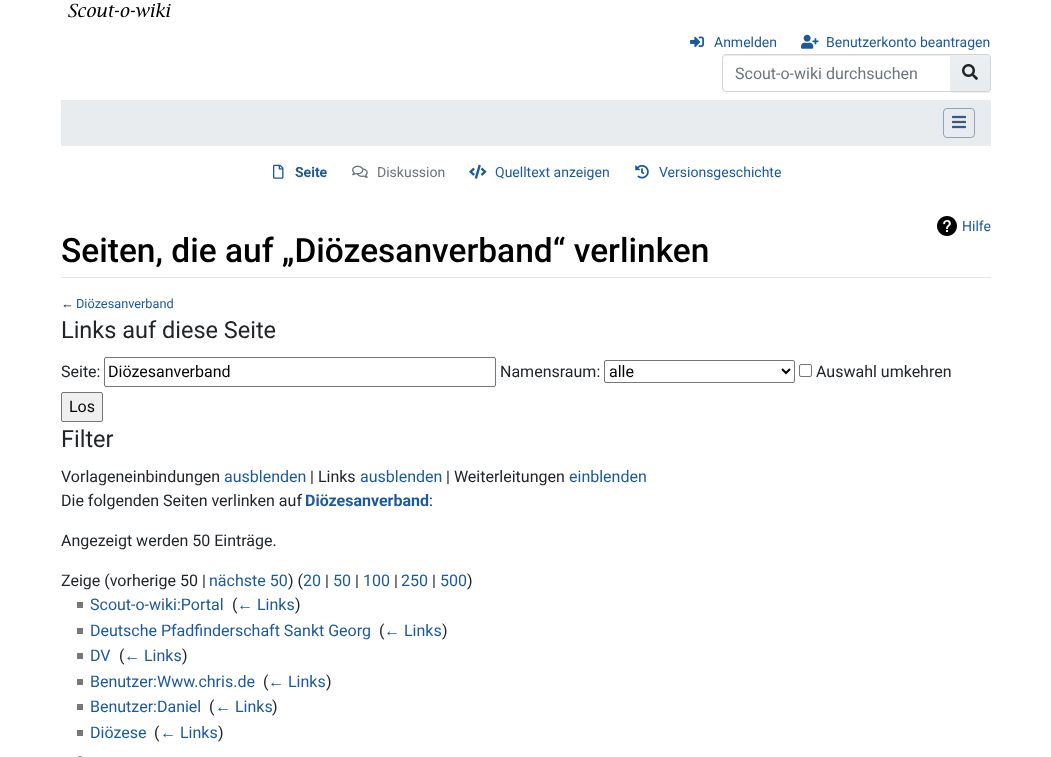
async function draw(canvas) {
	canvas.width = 1051;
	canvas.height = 757;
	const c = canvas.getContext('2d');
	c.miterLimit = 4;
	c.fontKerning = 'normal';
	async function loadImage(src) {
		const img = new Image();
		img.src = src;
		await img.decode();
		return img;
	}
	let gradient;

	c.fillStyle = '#fff';
	c.fillRect(0, 0, 1051, 757);
	c.drawImage(await loadImage('img1.png'), 68, 3, 103, 15);
	c.drawImage(await loadImage('img2.png'), 690, 36, 14, 12);
	c.font = '14px Roboto';
	c.fillStyle = '#1b599b';
	c.fillText('Anmelden', 714, 47);
	c.drawImage(await loadImage('img3.png'), 801, 34, 18, 15);
	c.fillText('Benutzerkonto beantragen', 826, 47);
	c.fillStyle = '#ececec';
	c.beginPath();
	c.moveTo(726, 56);
	c.lineTo(950, 56);
	c.lineTo(950, 55);
	c.lineTo(726, 55);
	c.bezierCurveTo(724, 55, 723, 57, 723, 59);
	c.bezierCurveTo(723, 57, 724, 56, 726, 56);
	c.closePath();
	c.fill();
	c.beginPath();
	c.roundRect(722.5, 54.5, 228, 37, [3.5, 0, 0, 3.5]);
	c.strokeStyle = '#ced4da';
	c.stroke();
	c.font = '16px Roboto';
	c.fillStyle = '#6c757d';
	c.fillText('Scout-o-wiki durchsuchen', 735, 79);
	c.fillStyle = '#00000012';
	c.filter = 'blur(0.5px)';
	c.beginPath();
	c.roundRect(950, 55, 41, 38, 4);
	c.fill();
	c.filter = 'none';
	gradient = c.createLinearGradient(970, 55, 970, 91);
	gradient.addColorStop(0, '#eceff1');
	gradient.addColorStop(1, '#e9ecef');
	c.fillStyle = gradient;
	c.beginPath();
	c.roundRect(950, 55, 40, 36, [0, 3, 3, 0]);
	c.fill();
	c.fillStyle = '#ffffff26';
	c.beginPath();
	c.moveTo(950, 56);
	c.lineTo(987, 56);
	c.bezierCurveTo(989, 56, 990, 57, 990, 59);
	c.lineTo(990, 58);
	c.bezierCurveTo(990, 56, 989, 55, 987, 55);
	c.lineTo(950, 55);
	c.closePath();
	c.fill();
	c.fillStyle = '#ced4da';
	c.beginPath();
	c.moveTo(950, 54);
	c.lineTo(987, 54);
	c.bezierCurveTo(989, 54, 991, 56, 991, 58);
	c.lineTo(991, 88);
	c.bezierCurveTo(991, 90, 989, 92, 987, 92);
	c.lineTo(950, 92);
	c.closePath();
	c.moveTo(950, 55);
	c.lineTo(987, 55);
	c.bezierCurveTo(989, 55, 990, 56, 990, 58);
	c.lineTo(990, 88);
	c.bezierCurveTo(990, 90, 989, 91, 987, 91);
	c.lineTo(950, 91);
	c.closePath();
	c.fill('evenodd');
	c.drawImage(await loadImage('img4.png'), 962, 64, 16, 16);
	c.fillStyle = '#e9ecef';
	c.fillRect(61, 100, 930, 46);
	c.beginPath();
	c.roundRect(943.5, 108.5, 31, 29, 3.5);
	c.strokeStyle = '#8fa4ba';
	c.stroke();
	c.drawImage(await loadImage('img5.png'), 952, 115, 14, 14);
	c.drawImage(await loadImage('img6.png'), 273, 164, 11, 15);
	c.font = 'bold 14px Roboto';
	c.fillStyle = '#1b599b';
	c.fillText('Seite', 295, 177);
	c.drawImage(await loadImage('img7.png'), 352, 165, 16, 13);
	c.font = '14px Roboto';
	c.fillStyle = '#6c757d';
	c.fillText('Diskussion', 377, 177);
	c.drawImage(await loadImage('img8.png'), 469, 164, 18, 15);
	c.fillStyle = '#1b599b';
	c.fillText('Quelltext anzeigen', 495, 177);
	c.drawImage(await loadImage('img9.png'), 635, 165, 14, 14);
	c.fillText('Versionsgeschichte', 659, 177);
	c.drawImage(await loadImage('img10.png'), 937, 216, 20, 20);
	c.fillText('Hilfe', 962, 231);
	c.fillStyle = '#e6e6e6';
	c.fillRect(61, 277, 930, 1);
	c.font = '500 33.5px Roboto';
	c.fillStyle = '#000';
	c.fillText('Seiten, die auf „Diözesanverband“ verlinken', 61, 262);
	c.font = '12.75px Liberation Sans';
	c.fillStyle = '#212529';
	c.fillText('←', 61, 308);
	c.font = '12.75px Roboto';
	c.fillStyle = '#1b599b';
	c.fillText('Diözesanverband', 76, 308);
	c.font = '23.5px Roboto';
	c.fillStyle = '#212529';
	c.fillText('Links auf diese Seite', 61, 338);
	c.font = '16px Roboto';
	c.fillText('Seite:', 61, 377);
	c.beginPath();
	c.roundRect(104.5, 357.5, 391, 29, 1.5);
	c.strokeStyle = '#767676';
	c.stroke();
	c.fillStyle = '#000';
	c.fillText('Diözesanverband', 108, 377);
	c.fillStyle = '#212529';
	c.fillText('Namensraum:', 500, 377);
	c.beginPath();
	c.roundRect(604.5, 360.5, 190, 22, 1.5);
	c.stroke();
	c.beginPath();
	c.moveTo(782, 369);
	c.lineTo(786, 373);
	c.lineTo(790, 369);
	c.strokeStyle = '#000';
	c.lineWidth = 2;
	c.stroke();
	c.fillStyle = '#000';
	c.fillText('alle', 609, 377);
	c.beginPath();
	c.roundRect(799.5, 364.5, 12, 12, 1.5);
	c.strokeStyle = '#767676';
	c.lineWidth = 1;
	c.stroke();
	c.fillStyle = '#212529';
	c.fillText('Auswahl umkehren', 816, 377);
	c.fillStyle = '#efefef';
	c.beginPath();
	c.roundRect(61.5, 392.5, 41, 29, 1.5);
	c.fill();
	c.stroke();
	c.fillStyle = '#000';
	c.fillText('Los', 69, 412);
	c.font = '23.5px Roboto';
	c.fillStyle = '#212529';
	c.fillText('Filter', 61, 447);
	c.font = '16px Roboto';
	c.fillText('Vorlageneinbindungen', 61, 482);
	c.fillStyle = '#1b599b';
	c.fillText('ausblenden', 224, 482);
	c.fillStyle = '#212529';
	c.fillText('| Links', 310, 482);
	c.fillStyle = '#1b599b';
	c.fillText('ausblenden', 360, 482);
	c.fillStyle = '#212529';
	c.fillText('| Weiterleitungen', 446, 482);
	c.fillStyle = '#1b599b';
	c.fillText('einblenden', 569, 482);
	c.fillStyle = '#212529';
	c.fillText('Die folgenden Seiten verlinken auf', 61, 506);
	c.font = 'bold 16px Roboto';
	c.fillStyle = '#1b599b';
	c.fillText('Diözesanverband', 305, 506);
	c.font = '16px Roboto';
	c.fillStyle = '#212529';
	for (const [text, x, y] of [
		[':', 429, 506],
		['Angezeigt werden 50 Einträge.', 61, 546],
		['Zeige (vorherige 50 |', 61, 586],
	]) {
		c.fillText(text, x, y);
	}
	c.fillStyle = '#1b599b';
	c.fillText('nächste 50', 209, 586);
	c.fillStyle = '#212529';
	c.fillText(') (', 288, 586);
	c.fillStyle = '#1b599b';
	c.fillText('20', 303, 586);
	c.fillStyle = '#212529';
	c.fillText('|', 325, 586);
	c.fillStyle = '#1b599b';
	c.fillText('50', 333, 586);
	c.fillStyle = '#212529';
	c.fillText('|', 355, 586);
	c.fillStyle = '#1b599b';
	c.fillText('100', 363, 586);
	c.fillStyle = '#212529';
	c.fillText('|', 394, 586);
	c.fillStyle = '#1b599b';
	c.fillText('250', 401, 586);
	c.fillStyle = '#212529';
	c.fillText('|', 432, 586);
	c.fillStyle = '#1b599b';
	c.fillText('500', 440, 586);
	c.fillStyle = '#212529';
	c.fillText(')', 467, 586);
	c.fillStyle = '#777';
	c.fillRect(77, 602, 6, 6);
	c.fillStyle = '#1b599b';
	c.fillText('Scout-o-wiki:Portal', 90, 610);
	c.fillStyle = '#212529';
	c.fillText('(', 232, 610);
	c.font = '16px Liberation Sans';
	c.fillStyle = '#1b599b';
	c.fillText('←', 237, 610);
	c.font = '16px Roboto';
	c.fillText('Links', 257, 610);
	c.fillStyle = '#212529';
	c.fillText(')', 295, 610);
	c.fillStyle = '#777';
	c.fillRect(77, 628, 6, 6);
	c.fillStyle = '#1b599b';
	c.fillText('Deutsche Pfadfinderschaft Sankt Georg', 90, 636);
	c.fillStyle = '#212529';
	c.fillText('(', 379, 636);
	c.font = '16px Liberation Sans';
	c.fillStyle = '#1b599b';
	c.fillText('←', 384, 636);
	c.font = '16px Roboto';
	c.fillText('Links', 404, 636);
	c.fillStyle = '#212529';
	c.fillText(')', 442, 636);
	c.fillStyle = '#777';
	c.fillRect(77, 653, 6, 6);
	c.fillStyle = '#1b599b';
	c.fillText('DV', 90, 661);
	c.fillStyle = '#212529';
	c.fillText('(', 119, 661);
	c.font = '16px Liberation Sans';
	c.fillStyle = '#1b599b';
	c.fillText('←', 124, 661);
	c.font = '16px Roboto';
	c.fillText('Links', 144, 661);
	c.fillStyle = '#212529';
	c.fillText(')', 182, 661);
	c.fillStyle = '#777';
	c.fillRect(77, 679, 6, 6);
	c.fillStyle = '#1b599b';
	c.fillText('Benutzer:Www.chris.de', 90, 687);
	c.fillStyle = '#212529';
	c.fillText('(', 263, 687);
	c.font = '16px Liberation Sans';
	c.fillStyle = '#1b599b';
	c.fillText('←', 268, 687);
	c.font = '16px Roboto';
	c.fillText('Links', 288, 687);
	c.fillStyle = '#212529';
	c.fillText(')', 326, 687);
	c.fillStyle = '#777';
	c.fillRect(77, 704, 6, 6);
	c.fillStyle = '#1b599b';
	c.fillText('Benutzer:Daniel', 90, 712);
	c.fillStyle = '#212529';
	c.fillText('(', 209, 712);
	c.font = '16px Liberation Sans';
	c.fillStyle = '#1b599b';
	c.fillText('←', 215, 712);
	c.font = '16px Roboto';
	c.fillText('Links', 235, 712);
	c.fillStyle = '#212529';
	c.fillText(')', 272, 712);
	c.fillStyle = '#777';
	c.fillRect(77, 730, 6, 6);
	c.fillStyle = '#1b599b';
	c.fillText('Diözese', 90, 738);
	c.fillStyle = '#212529';
	c.fillText('(', 154, 738);
	c.font = '16px Liberation Sans';
	c.fillStyle = '#1b599b';
	c.fillText('←', 160, 738);
	c.font = '16px Roboto';
	c.fillText('Links', 180, 738);
	c.fillStyle = '#212529';
	c.fillText(')', 218, 738);
	c.drawImage(await loadImage('img11.png'), 78, 756, 4, 1);
}

draw(document.querySelector('canvas'));
